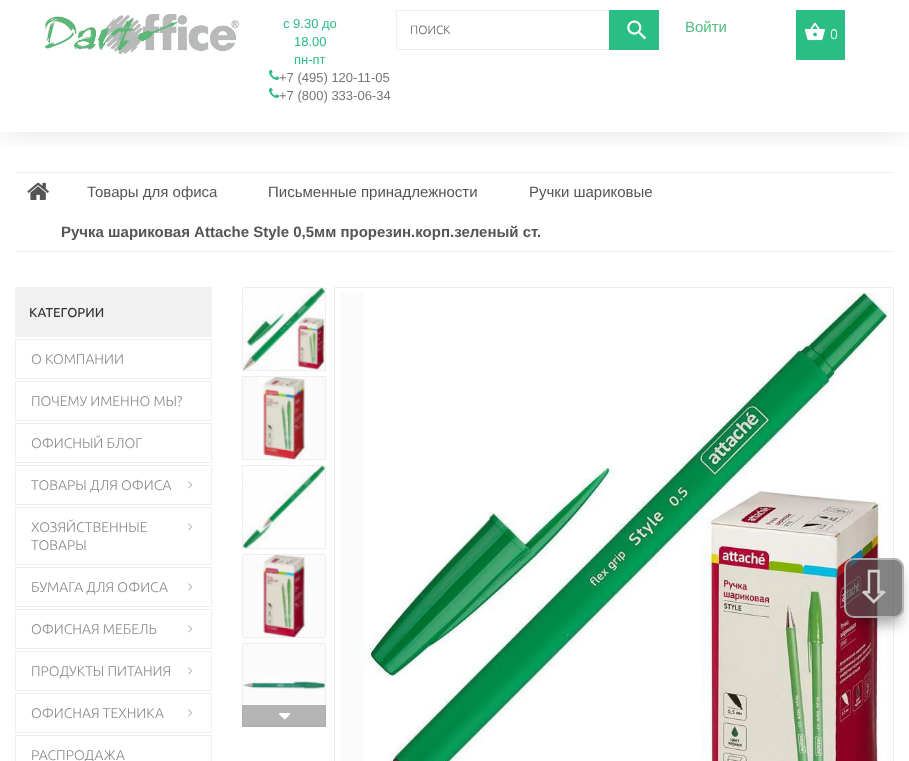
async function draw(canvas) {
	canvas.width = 909;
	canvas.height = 761;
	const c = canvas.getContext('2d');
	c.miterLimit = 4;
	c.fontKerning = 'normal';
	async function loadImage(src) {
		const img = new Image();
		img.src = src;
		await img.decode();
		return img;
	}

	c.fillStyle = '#fff';
	c.fillRect(0, 0, 909, 761);
	c.fillStyle = '#eee';
	c.fillRect(15, 172, 879, 1);
	c.save();
	c.beginPath();
	c.rect(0, 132, 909, 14);
	c.clip();
	c.fillStyle = '#00000026';
	c.filter = 'blur(16.5px)';
	c.beginPath();
	c.rect(5, 6, 899, 122);
	c.fill();
	c.filter = 'none';
	c.restore();
	c.drawImage(await loadImage('img1.png'), 45, 14, 194, 40);
	c.font = '13px Liberation Sans';
	c.fillStyle = '#2abd84';
	for (const [text, x, y] of [
		['c 9.30 до', 283, 28],
		['18.00', 294, 46],
		['пн-пт', 294, 64],
	]) {
		c.fillText(text, x, y);
	}
	c.drawImage(await loadImage('img2.png'), 269, 69, 11, 11);
	c.fillStyle = '#777';
	c.fillText('+7 (495) 120-11-05', 279, 82);
	c.drawImage(await loadImage('img2.png'), 269, 87, 11, 11);
	c.fillText('+7 (800) 333-06-34', 279, 100);
	c.strokeStyle = '#eee';
	c.strokeRect(396.5, 10.5, 262, 39);
	c.font = '300 12px Ubuntu';
	c.fillStyle = '#5c5c5c';
	c.fillText('ПОИСК', 410, 34);
	c.fillStyle = '#2abd84';
	c.fillRect(609, 10, 50, 40);
	c.drawImage(await loadImage('img3.png'), 627, 20, 20, 20);
	c.font = '15px Liberation Sans';
	c.fillStyle = '#52bd83';
	c.fillText('Войти', 685, 32);
	c.fillStyle = '#2abd84';
	c.fillRect(796, 10, 49, 50);
	c.drawImage(await loadImage('img4.png'), 804, 22, 21, 19);
	c.font = '300 14px Ubuntu';
	c.fillStyle = '#fff';
	c.fillText('0', 830, 39);
	c.fillStyle = '#eee';
	c.fillRect(15, 251, 879, 1);
	c.drawImage(await loadImage('img5.png'), 27, 182, 22, 18);
	c.font = '15px Liberation Sans';
	c.fillStyle = '#555';
	for (const [text, x, y] of [
		['Товары для офиса', 87, 197],
		['Письменные принадлежности', 268, 197],
		['Ручки шариковые', 529, 197],
	]) {
		c.fillText(text, x, y);
	}
	c.font = 'bold 15px Liberation Sans';
	c.fillText('Ручка шариковая Attache Style 0,5мм прорезин.корп.зеленый ст.', 61, 237);
	c.fillStyle = '#f1f1f1';
	c.fillRect(15, 287, 197, 50);
	c.font = '500 13px Ubuntu';
	c.fillStyle = '#333';
	c.fillText('КАТЕГОРИИ', 29, 317);
	c.strokeRect(15.5, 339.5, 196, 39);
	c.font = '300 14px Ubuntu';
	c.fillStyle = '#888';
	c.fillText('О КОМПАНИИ', 31, 364);
	c.strokeRect(15.5, 381.5, 196, 39);
	c.fillText('ПОЧЕМУ ИМЕННО МЫ?', 31, 406);
	c.strokeRect(15.5, 423.5, 196, 39);
	c.fillText('ОФИСНЫЙ БЛОГ', 31, 448);
	c.strokeRect(15.5, 465.5, 196, 39);
	c.fillText('ТОВАРЫ ДЛЯ ОФИСА', 31, 490);
	c.drawImage(await loadImage('img6.png'), 188, 481, 5, 8);
	c.strokeRect(15.5, 507.5, 196, 57);
	c.fillText('ХОЗЯЙСТВЕННЫЕ', 31, 532);
	c.drawImage(await loadImage('img6.png'), 188, 523, 5, 8);
	c.fillText('ТОВАРЫ', 31, 550);
	c.strokeRect(15.5, 567.5, 196, 39);
	c.fillText('БУМАГА ДЛЯ ОФИСА', 31, 592);
	c.drawImage(await loadImage('img6.png'), 188, 583, 5, 8);
	c.strokeRect(15.5, 609.5, 196, 39);
	c.fillText('ОФИСНАЯ МЕБЕЛЬ', 31, 634);
	c.drawImage(await loadImage('img6.png'), 188, 625, 5, 8);
	c.strokeRect(15.5, 651.5, 196, 39);
	c.fillText('ПРОДУКТЫ ПИТАНИЯ', 31, 676);
	c.drawImage(await loadImage('img6.png'), 188, 667, 5, 8);
	c.strokeRect(15.5, 693.5, 196, 39);
	c.fillText('ОФИСНАЯ ТЕХНИКА', 31, 718);
	c.drawImage(await loadImage('img6.png'), 188, 709, 5, 8);
	c.strokeRect(15.5, 735.5, 196, 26);
	c.fillText('РАСПРОДАЖА', 31, 760);
	c.strokeRect(242.5, 287.5, 83, 83);
	c.drawImage(await loadImage('img7.png'), 243, 288, 82, 82);
	c.fillStyle = '#fbfbfb';
	c.beginPath();
	c.rect(242.5, 376.5, 83, 83);
	c.fill();
	c.stroke();
	c.drawImage(await loadImage('img8.png'), 259, 377, 50, 82);
	c.strokeRect(242.5, 465.5, 83, 83);
	c.drawImage(await loadImage('img9.png'), 243, 466, 82, 82);
	c.beginPath();
	c.rect(242.5, 554.5, 83, 83);
	c.fill();
	c.stroke();
	c.drawImage(await loadImage('img10.png'), 259, 555, 49, 82);
	c.beginPath();
	c.rect(242.5, 643.5, 83, 83);
	c.fill();
	c.stroke();
	c.drawImage(await loadImage('img11.png'), 243, 677, 82, 14);
	c.fillStyle = '#1212124d';
	c.fillRect(242, 705, 84, 22);
	c.drawImage(await loadImage('img12.png'), 279, 713, 12, 7);
	c.strokeRect(334.5, 287.5, 559, 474);
	c.fillStyle = '#fbfbfb';
	c.fillRect(340, 293, 24, 468);
	c.drawImage(await loadImage('img13.png'), 364, 293, 524, 468);
	c.save();
	c.beginPath();
	c.moveTo(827, 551);
	c.lineTo(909, 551);
	c.lineTo(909, 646);
	c.lineTo(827, 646);
	c.closePath();
	c.moveTo(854, 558);
	c.lineTo(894, 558);
	c.bezierCurveTo(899.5, 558, 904, 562.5, 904, 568);
	c.lineTo(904, 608);
	c.bezierCurveTo(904, 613.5, 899.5, 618, 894, 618);
	c.lineTo(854, 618);
	c.bezierCurveTo(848.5, 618, 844, 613.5, 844, 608);
	c.lineTo(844, 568);
	c.bezierCurveTo(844, 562.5, 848.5, 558, 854, 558);
	c.closePath();
	c.clip('evenodd');
	c.fillStyle = '#00000659';
	c.filter = 'blur(7px)';
	c.beginPath();
	c.roundRect(849, 573, 51, 51, 6);
	c.fill();
	c.filter = 'none';
	c.restore();
	c.fillStyle = '#4f4f4fb3';
	c.beginPath();
	c.roundRect(844, 558, 60, 60, 10);
	c.fill();
	c.beginPath();
	c.roundRect(845, 559, 58, 58, 9);
	c.strokeStyle = '#ccccccb3';
	c.lineWidth = 2;
	c.stroke();
	c.font = '45px FreeSans';
	c.fillStyle = '#d2cdce';
	c.fillText('⇩', 861, 601);
}

draw(document.querySelector('canvas'));
